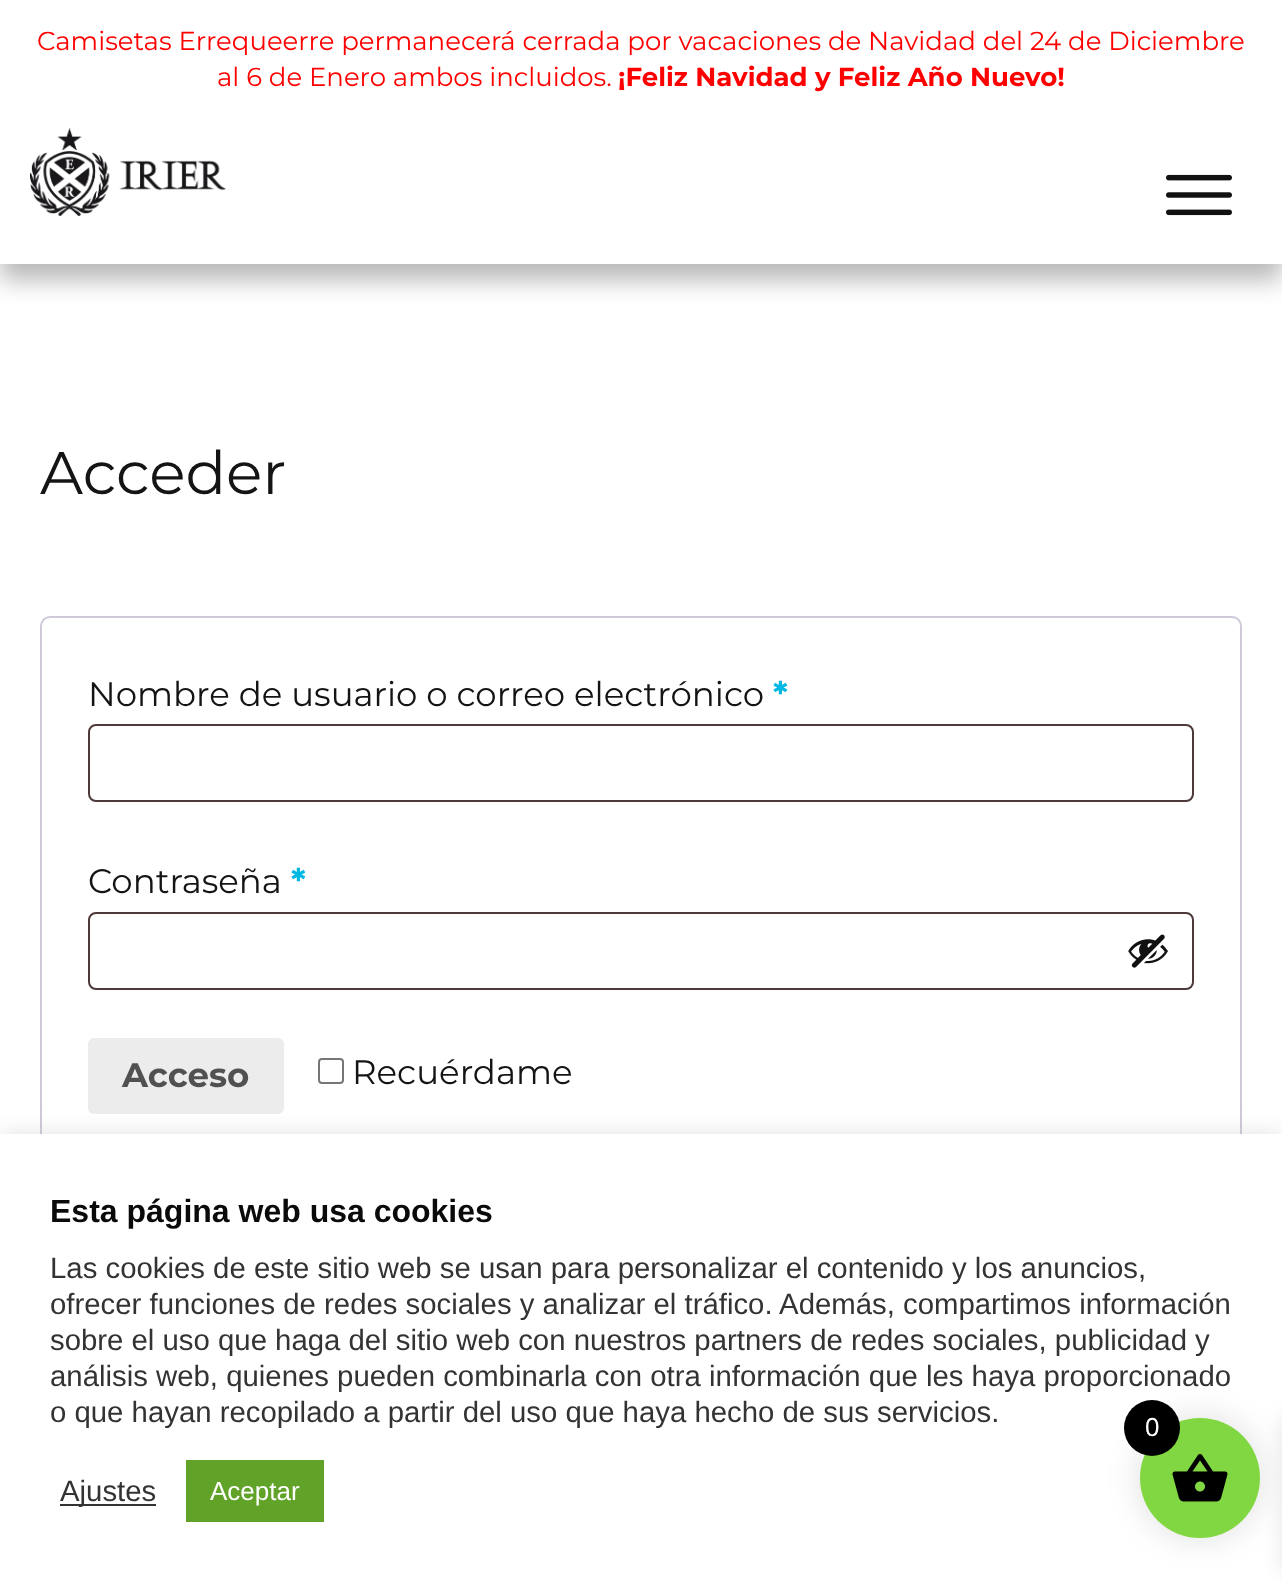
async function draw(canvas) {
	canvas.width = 1282;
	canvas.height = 1581;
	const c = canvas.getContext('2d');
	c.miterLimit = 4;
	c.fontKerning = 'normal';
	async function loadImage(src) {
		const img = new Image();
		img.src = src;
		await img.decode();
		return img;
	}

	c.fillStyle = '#fff';
	c.fillRect(0, 0, 1282, 1581);
	c.fillStyle = '#00000047';
	c.filter = 'blur(12px)';
	c.beginPath();
	c.rect(0, 16, 1282, 264);
	c.fill();
	c.filter = 'none';
	c.fillStyle = '#fff';
	c.fillRect(0, 0, 1282, 264);
	c.font = '26px Montserrat';
	c.fillStyle = '#f00';
	c.fillText('Camisetas Errequeerre permanecerá cerrada por vacaciones de Navidad del 24 de Diciembre', 37, 50);
	c.fillText('al 6 de Enero ambos incluidos.', 217, 86);
	c.font = 'bold 26px Montserrat';
	c.fillText('¡Feliz Navidad y Feliz Año Nuevo!', 618, 86);
	c.drawImage(await loadImage('img1.png'), 30, 128, 196, 88);
	c.drawImage(await loadImage('img2.png'), 1166, 174, 66, 42);
	c.font = '60px Montserrat';
	c.fillStyle = '#141414';
	c.fillText('Acceder', 40, 494);
	c.beginPath();
	c.roundRect(41, 617, 1200, 692, 9);
	c.strokeStyle = '#cfc8d8';
	c.lineWidth = 2;
	c.stroke();
	c.font = '34px Montserrat';
	c.fillText('Nombre de usuario o correo electrónico', 88, 706);
	c.font = 'bold 34px Montserrat';
	c.fillStyle = '#01b7e4';
	c.fillText('*', 773, 706);
	c.beginPath();
	c.roundRect(89, 725, 1104, 76, 7);
	c.strokeStyle = '#4d3939';
	c.stroke();
	c.font = '34px Montserrat';
	c.fillStyle = '#141414';
	c.fillText('Contraseña', 88, 893);
	c.font = 'bold 34px Montserrat';
	c.fillStyle = '#01b7e4';
	c.fillText('*', 291, 893);
	c.beginPath();
	c.roundRect(89, 913, 1104, 76, 7);
	c.stroke();
	c.drawImage(await loadImage('img3.png'), 1128, 934, 40, 34);
	c.fillStyle = '#ececec';
	c.beginPath();
	c.roundRect(88, 1038, 196, 76, 6);
	c.fill();
	c.fillStyle = '#515151';
	c.fillText('Acceso', 122, 1087);
	c.beginPath();
	c.roundRect(319, 1059, 24, 24, 3);
	c.strokeStyle = '#767676';
	c.stroke();
	c.font = '34px Montserrat';
	c.fillStyle = '#141414';
	c.fillText('Recuérdame', 352, 1084);
	c.fillStyle = '#acabab4d';
	c.filter = 'blur(10px)';
	c.beginPath();
	c.rect(0, 1132, 1282, 448);
	c.fill();
	c.filter = 'none';
	c.fillStyle = '#fff';
	c.fillRect(0, 1134, 1282, 447);
	c.font = 'bold 32px Liberation Sans';
	c.fillStyle = '#0a0a0a';
	c.fillText('Esta página web usa cookies', 50, 1222);
	c.font = '29.35px Liberation Sans';
	c.fillStyle = '#333';
	for (const [text, x, y] of [
		['Las cookies de este sitio web se usan para personalizar el contenido y los anuncios,', 50, 1278],
		['ofrecer funciones de redes sociales y analizar el tráfico. Además, compartimos información', 50, 1314],
		['sobre el uso que haga del sitio web con nuestros partners de redes sociales, publicidad y', 50, 1350],
		['análisis web, quienes pueden combinarla con otra información que les haya proporcionado', 50, 1386],
		['o que hayan recopilado a partir del uso que haya hecho de sus servicios.', 50, 1422],
	]) {
		c.fillText(text, x, y);
	}
	c.fillRect(60, 1504, 96, 2);
	c.fillText('Ajustes', 60, 1501);
	c.fillStyle = '#61a229';
	c.fillRect(186, 1460, 138, 62);
	c.font = '26px Liberation Sans';
	c.fillStyle = '#fff';
	c.fillText('Aceptar', 210, 1500);
	c.fillStyle = '#0000001a';
	c.filter = 'blur(15px)';
	c.beginPath();
	c.roundRect(1136, 1414, 128, 128, 64);
	c.fill();
	c.filter = 'none';
	c.filter = 'blur(10px)';
	c.beginPath();
	c.rect(1282, 1416, 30, 156);
	c.fill();
	c.filter = 'none';
	c.fillStyle = '#81d742';
	c.beginPath();
	c.arc(1200, 1478, 60, 0, 2 * Math.PI);
	c.fill();
	c.drawImage(await loadImage('img4.png'), 1172, 1454, 56, 48);
	c.fillStyle = '#000';
	c.beginPath();
	c.arc(1152, 1428, 28, 0, 2 * Math.PI);
	c.fill();
	c.fillStyle = '#fff';
	c.fillText('0', 1145, 1436);
}

draw(document.querySelector('canvas'));
